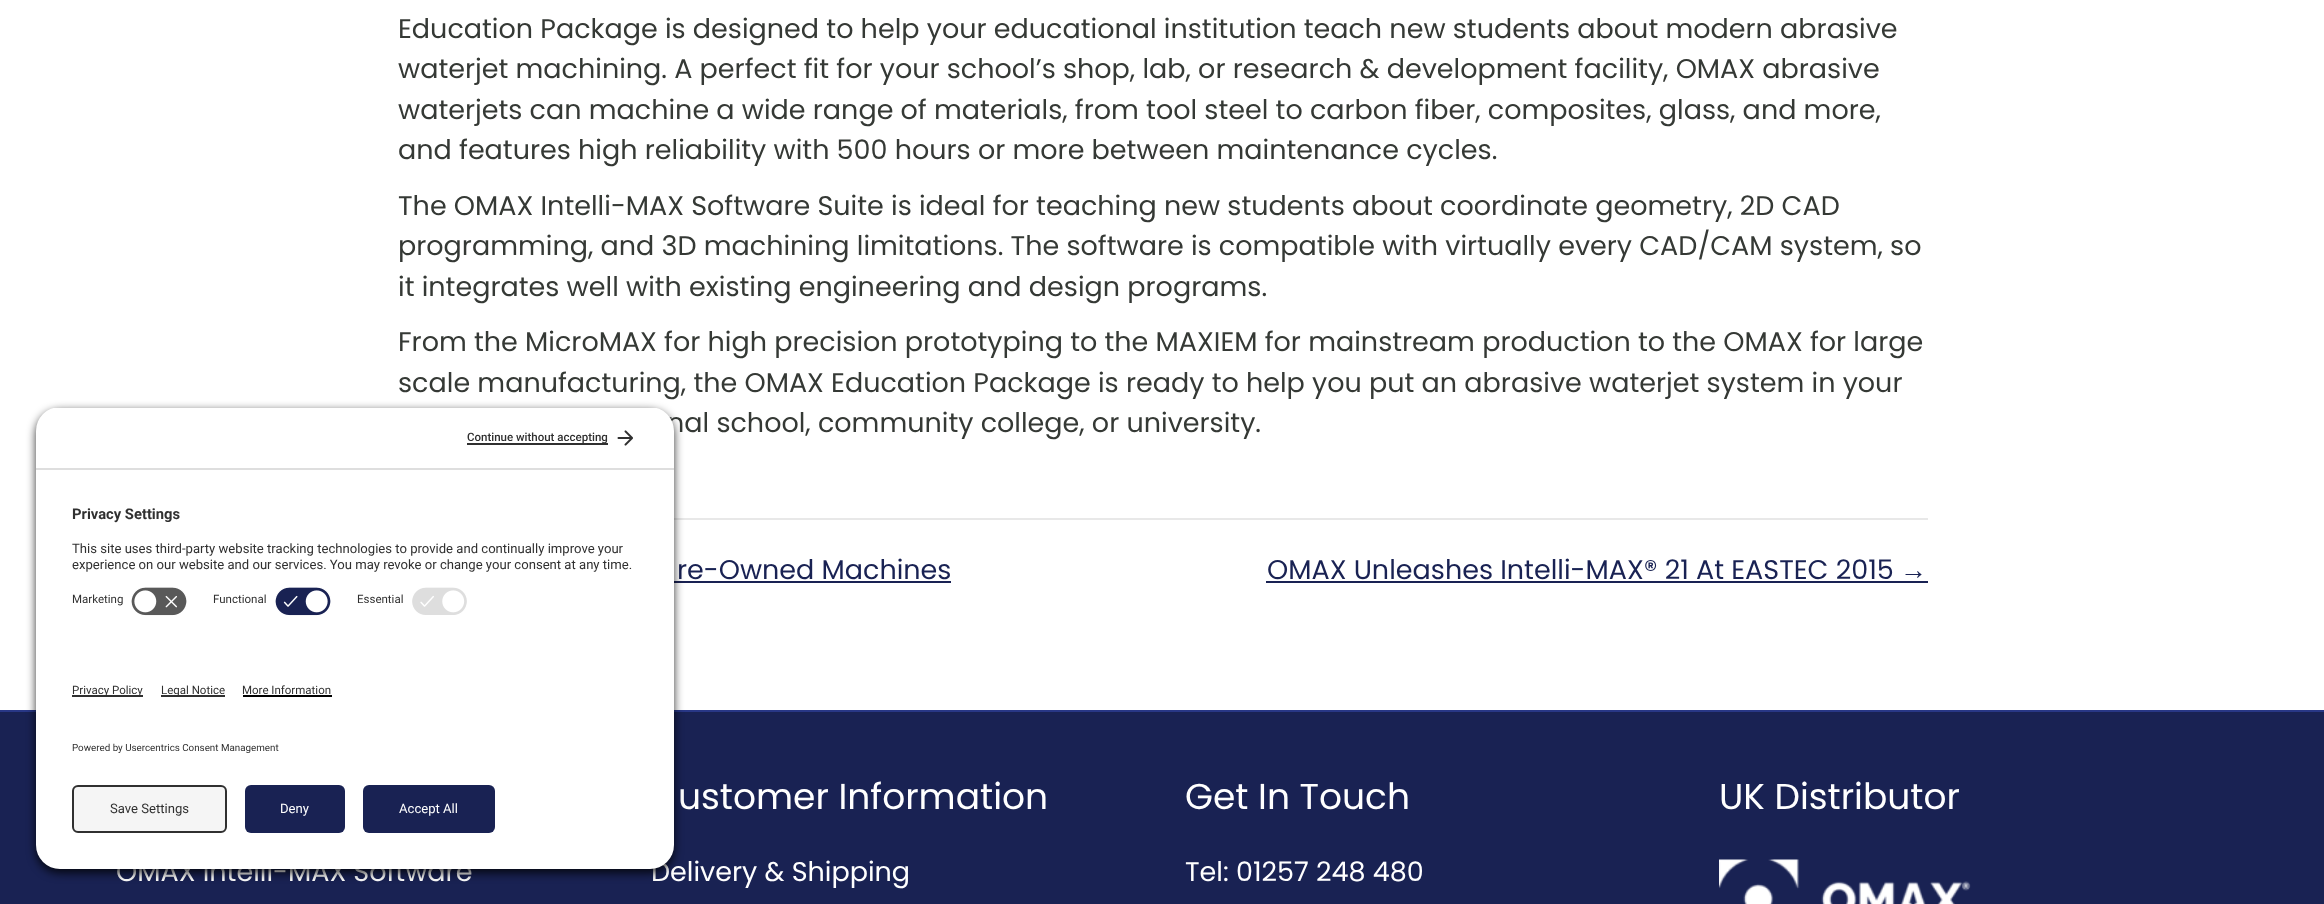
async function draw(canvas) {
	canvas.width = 2324;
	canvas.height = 904;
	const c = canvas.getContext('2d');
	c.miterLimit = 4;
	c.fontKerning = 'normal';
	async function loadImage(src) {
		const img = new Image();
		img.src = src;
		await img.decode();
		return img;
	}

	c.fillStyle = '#fff';
	c.fillRect(0, 0, 2324, 904);
	c.font = '27px Poppins';
	c.fillStyle = '#353935';
	for (const [text, x, y] of [
		['Education Package is designed to help your educational institution teach new students about modern abrasive', 398, 38],
		['waterjet machining. A perfect fit for your school’s shop, lab, or research & development facility, OMAX abrasive', 398, 78],
		['waterjets can machine a wide range of materials, from tool steel to carbon fiber, composites, glass, and more,', 398, 119],
		['and features high reliability with 500 hours or more between maintenance cycles.', 398, 159],
		['The OMAX Intelli-MAX Software Suite is ideal for teaching new students about coordinate geometry, 2D CAD', 398, 215],
		['programming, and 3D machining limitations. The software is compatible with virtually every CAD/CAM system, so', 398, 255],
		['it integrates well with existing engineering and design programs.', 398, 296],
		['From the MicroMAX for high precision prototyping to the MAXIEM for mainstream production to the OMAX for large', 398, 351],
		['scale manufacturing, the OMAX Education Package is ready to help you put an abrasive waterjet system in your', 398, 392],
		['nal school, community college, or university.', 667, 432],
	]) {
		c.fillText(text, x, y);
	}
	c.fillStyle = '#e8e8e8';
	c.fillRect(674, 518, 1254, 2);
	c.fillStyle = '#192253';
	c.fillText('re-Owned Machines', 677, 579);
	c.fillRect(674, 581, 277, 2);
	c.fillText('OMAX Unleashes Intelli-MAX® 21 At EASTEC 2015', 1267, 579);
	c.font = '27px Liberation Sans';
	c.fillText('→', 1900, 579);
	for (const [x, y, w, h, color] of [
		[1266, 581, 662, 2, '#192253'],
		[0, 712, 2324, 192, '#192253'],
		[0, 710, 2324, 2, '#283786'],
	]) {
		c.fillStyle = color;
		c.fillRect(x, y, w, h);
	}
	c.font = '27px Poppins';
	c.fillStyle = '#fff';
	c.fillText('OMAX Intelli-MAX Software', 116, 881);
	c.font = '36px Poppins';
	c.fillText('ustomer Information', 678, 809);
	c.font = '27px Poppins';
	c.fillText('Delivery & Shipping', 651, 881);
	c.font = '36px Poppins';
	c.fillText('Get In Touch', 1185, 809);
	c.font = '27px Poppins';
	c.fillText('Tel: 01257 248 480', 1185, 881);
	c.font = '36px Poppins';
	c.fillText('UK Distributor', 1719, 809);
	c.drawImage(await loadImage('img1.png'), 1719, 859, 252, 45);
	c.fillStyle = '#000000cc';
	c.filter = 'blur(5px)';
	c.beginPath();
	c.roundRect(36, 411, 638, 462, 24);
	c.fill();
	c.filter = 'none';
	c.save();
	c.beginPath();
	c.roundRect(36, 407, 638, 232, [24, 24, 0, 0]);
	c.clip();
	c.fillStyle = '#fff';
	c.fillRect(36, 408, 638, 60);
	c.restore();
	c.fillStyle = '#dedede';
	c.fillRect(36, 468, 638, 2);
	c.fillStyle = '#303030';
	c.fillRect(467, 443, 141, 2);
	c.font = '500 11.5px Roboto';
	c.fillText('Continue without accepting', 467, 441);
	c.drawImage(await loadImage('img2.png'), 617, 430, 16, 16);
	c.fillStyle = '#fff';
	c.fillRect(36, 470, 638, 169);
	c.font = 'bold 14.75px Roboto';
	c.fillStyle = '#303030';
	c.fillText('Privacy Settings', 72, 519);
	c.font = '13.1px Roboto';
	c.fillText('This site uses third-party website tracking technologies to provide and continually improve your', 72, 553);
	c.fillText('experience on our website and our services. You may revoke or change your consent at any time.', 72, 569);
	c.font = '11.5px Roboto';
	c.fillText('Marketing', 72, 603);
	c.drawImage(await loadImage('img3.png'), 131, 587, 56, 29);
	c.fillText('Functional', 213, 603);
	c.drawImage(await loadImage('img4.png'), 275, 587, 56, 29);
	c.fillText('Essential', 357, 603);
	c.drawImage(await loadImage('img5.png'), 412, 587, 55, 28);
	c.fillStyle = '#fff';
	c.beginPath();
	c.roundRect(36, 639, 638, 230, [0, 0, 24, 24]);
	c.fill();
	c.fillStyle = '#303030';
	c.fillRect(72, 695, 71, 2);
	c.fillText('Privacy Policy', 72, 694);
	c.fillRect(161, 695, 64, 2);
	c.fillText('Legal Notice', 161, 694);
	c.fillText('More Information', 242, 694);
	c.fillStyle = '#000';
	c.fillRect(243, 695, 89, 2);
	c.font = '9.8px Roboto';
	c.fillStyle = '#303030';
	c.fillText('Powered by Usercentrics Consent Management', 72, 751);
	c.fillStyle = '#f5f5f5';
	c.beginPath();
	c.roundRect(73, 786, 153, 46, 5);
	c.fill();
	c.strokeStyle = '#303030';
	c.lineWidth = 2;
	c.stroke();
	c.font = '13.1px Roboto';
	c.fillStyle = '#303030';
	c.fillText('Save Settings', 110, 813);
	c.fillStyle = '#192253';
	c.beginPath();
	c.roundRect(245, 785, 100, 48, 6);
	c.fill();
	c.fillStyle = '#fff';
	c.fillText('Deny', 280, 813);
	c.fillStyle = '#192253';
	c.beginPath();
	c.roundRect(363, 785, 132, 48, 6);
	c.fill();
	c.fillStyle = '#fff';
	c.fillText('Accept All', 399, 813);
}

draw(document.querySelector('canvas'));
